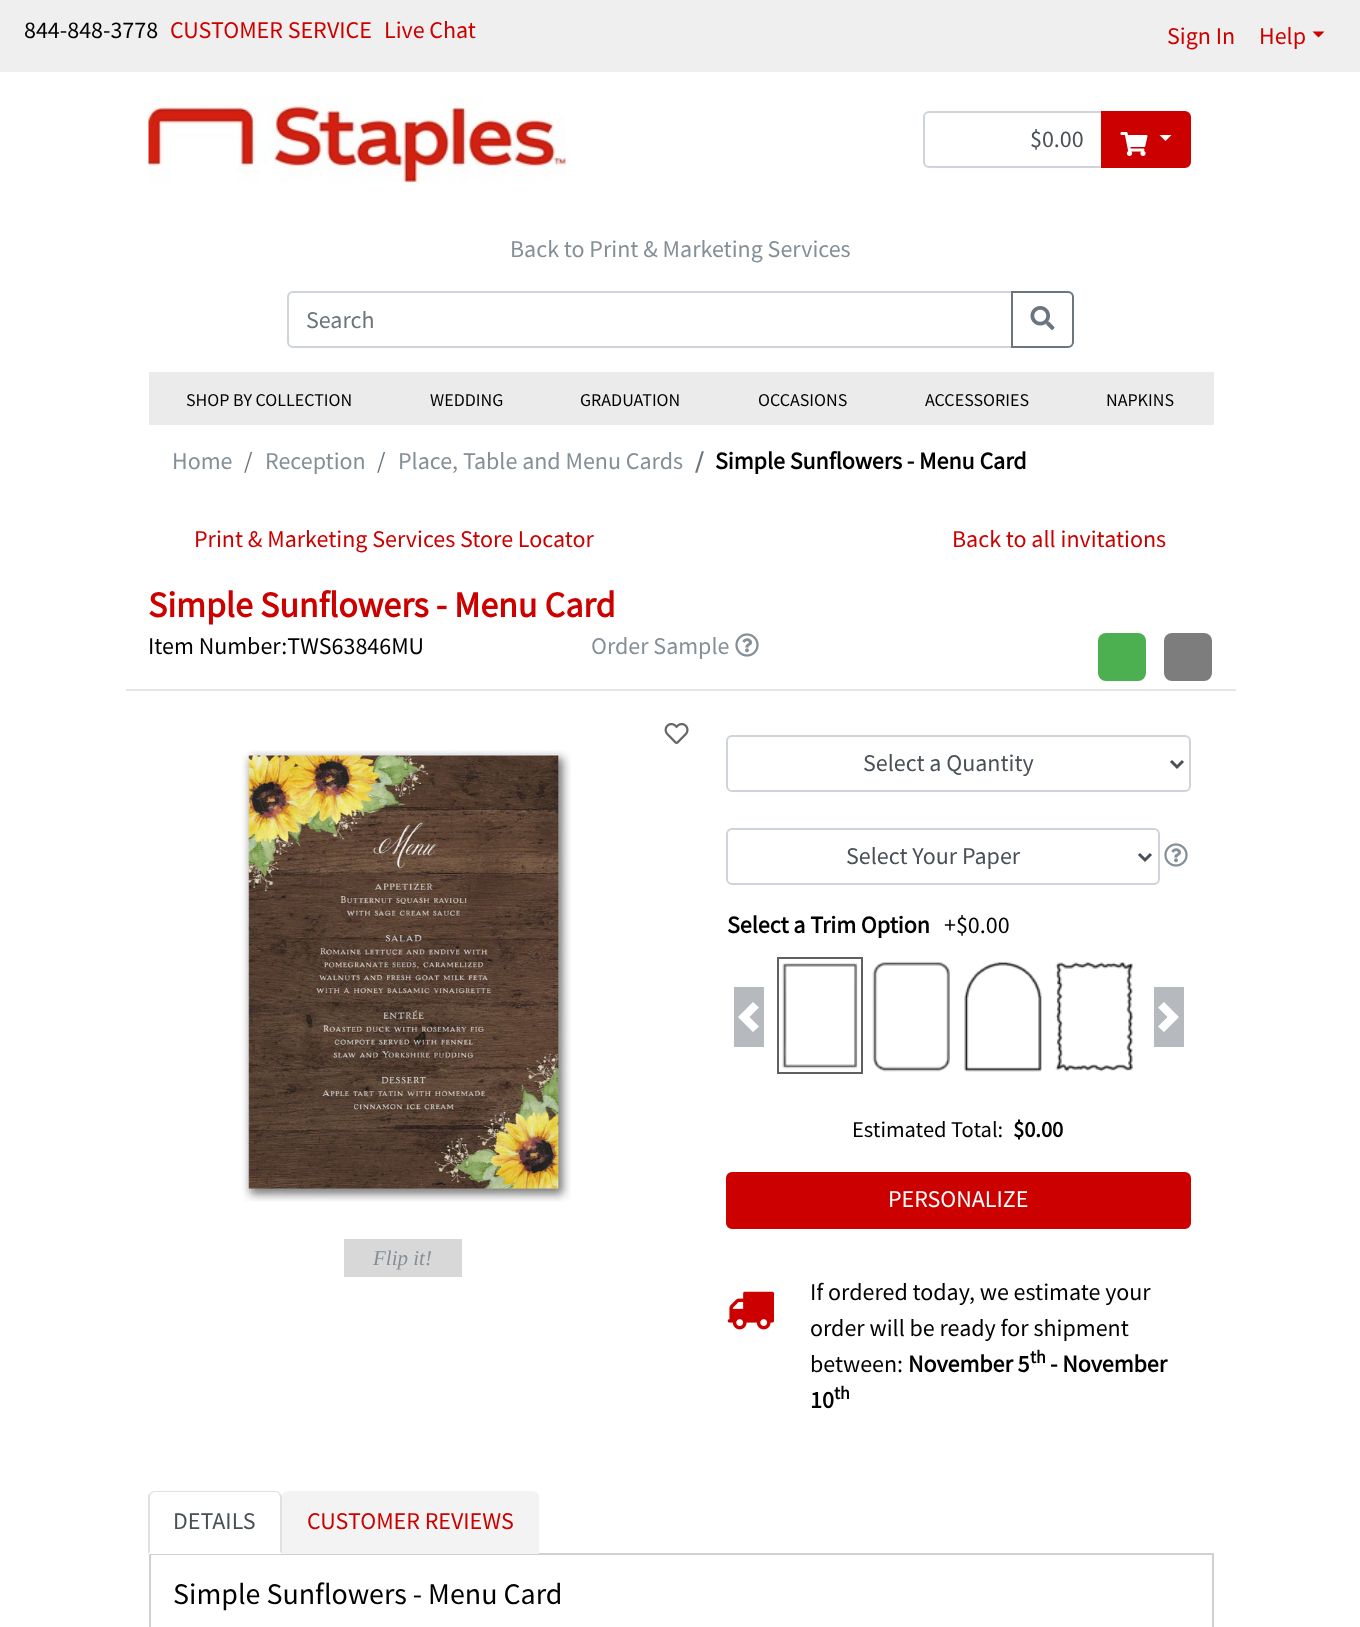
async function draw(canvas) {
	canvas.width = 1360;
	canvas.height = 1627;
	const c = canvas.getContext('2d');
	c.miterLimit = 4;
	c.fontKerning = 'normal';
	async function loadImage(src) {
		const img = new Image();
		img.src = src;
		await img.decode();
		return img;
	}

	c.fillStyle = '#fff';
	c.fillRect(0, 0, 1360, 1627);
	c.fillStyle = '#efefef';
	c.fillRect(0, 0, 1360, 72);
	c.font = '24px Source Sans Pro';
	c.fillStyle = '#000';
	c.fillText('844-848-3778', 24, 38);
	c.fillStyle = '#cd0000';
	for (const [text, x, y] of [
		['CUSTOMER SERVICE', 170, 38],
		['Live Chat', 384, 38],
		['Sign In', 1167, 44],
		['Help', 1259, 44],
	]) {
		c.fillText(text, x, y);
	}
	c.beginPath();
	c.moveTo(1312.5, 31.5);
	c.lineTo(1324.5, 31.5);
	c.lineTo(1318.5, 37.5);
	c.closePath();
	c.fill();
	c.drawImage(await loadImage('img1.png'), 148, 96, 418, 87);
	c.beginPath();
	c.roundRect(924, 112, 178, 55, [5, 0, 0, 5]);
	c.strokeStyle = '#ced4da';
	c.lineWidth = 2;
	c.stroke();
	c.fillStyle = '#495057';
	c.fillText('$0.00', 1030, 147);
	c.fillStyle = '#cd0000';
	c.beginPath();
	c.roundRect(1102, 112, 88, 55, [0, 5, 5, 0]);
	c.fill();
	c.strokeStyle = '#cd0000';
	c.stroke();
	c.drawImage(await loadImage('img2.png'), 1120, 132, 28, 24);
	c.fillStyle = '#fff';
	c.beginPath();
	c.moveTo(1159.5, 135);
	c.lineTo(1171.5, 135);
	c.lineTo(1165.5, 141);
	c.closePath();
	c.fill();
	c.fillStyle = '#858f98';
	c.fillText('Back to Print & Marketing Services', 510, 257);
	c.beginPath();
	c.roundRect(288, 292, 724, 55, [5, 0, 0, 5]);
	c.strokeStyle = '#ced4da';
	c.stroke();
	c.fillStyle = '#6c757d';
	c.fillText('Search', 306, 328);
	c.beginPath();
	c.roundRect(1012, 292, 61, 55, [0, 5, 5, 0]);
	c.strokeStyle = '#6c757d';
	c.stroke();
	c.drawImage(await loadImage('img3.png'), 1030, 306, 25, 24);
	c.fillStyle = '#ebebeb';
	c.fillRect(149, 372, 1065, 53);
	c.font = '18px Source Sans Pro';
	c.fillStyle = '#000';
	for (const [text, x, y] of [
		['SHOP BY COLLECTION', 186, 406],
		['WEDDING', 430, 406],
		['GRADUATION', 580, 406],
		['OCCASIONS', 758, 406],
		['ACCESSORIES', 925, 406],
		['NAPKINS', 1106, 406],
	]) {
		c.fillText(text, x, y);
	}
	c.font = '24px Source Sans Pro';
	c.fillStyle = '#858f98';
	c.fillText('Home', 172, 469);
	c.fillStyle = '#6c757d';
	c.fillText('/', 244, 469);
	c.fillStyle = '#858f98';
	c.fillText('Reception', 265, 469);
	c.fillStyle = '#6c757d';
	c.fillText('/', 377, 469);
	c.fillStyle = '#858f98';
	c.fillText('Place, Table and Menu Cards', 398, 469);
	c.font = 'bold 24px Source Sans Pro';
	c.fillStyle = '#6c757d';
	c.fillText('/', 695, 469);
	c.fillStyle = '#000';
	c.fillText('Simple Sunflowers - Menu Card', 715, 469);
	c.font = '24px Source Sans Pro';
	c.fillStyle = '#cd0000';
	c.fillText('Print & Marketing Services Store Locator', 194, 547);
	c.fillText('Back to all invitations', 952, 547);
	c.font = 'bold 36px Source Sans Pro';
	c.fillText('Simple Sunflowers - Menu Card', 148, 617);
	c.font = '24px Source Sans Pro';
	c.fillStyle = '#000';
	c.fillText('Item Number:TWS63846MU', 148, 654);
	c.fillStyle = '#858f98';
	c.fillText('Order Sample', 591, 654);
	c.drawImage(await loadImage('img4.png'), 735, 633, 24, 24);
	c.fillStyle = '#4caf50';
	c.beginPath();
	c.roundRect(1098, 633, 48, 48, 8);
	c.fill();
	c.fillStyle = '#7d7d7d';
	c.beginPath();
	c.roundRect(1164, 633, 48, 48, 8);
	c.fill();
	c.fillStyle = '#e6e6e6';
	c.fillRect(126, 689, 1110, 2);
	c.drawImage(await loadImage('img5.png'), 664, 723, 25, 21);
	c.drawImage(await loadImage('img6.png'), 242, 750, 329, 452);
	c.fillStyle = '#d8d8d8';
	c.fillRect(344, 1239, 118, 38);
	c.font = 'italic 21px Liberation Serif';
	c.fillStyle = '#858f98';
	c.fillText('Flip it!', 373, 1265);
	c.beginPath();
	c.roundRect(727, 736, 463, 55, 5);
	c.strokeStyle = '#ced4da';
	c.stroke();
	c.beginPath();
	c.moveTo(1171, 761);
	c.lineTo(1177, 767);
	c.lineTo(1183, 761);
	c.strokeStyle = '#495057';
	c.lineWidth = 3;
	c.stroke();
	c.font = '24px Source Sans Pro';
	c.fillStyle = '#495057';
	c.fillText('Select a Quantity', 863, 771);
	c.beginPath();
	c.roundRect(727, 829, 432, 55, 5);
	c.strokeStyle = '#ced4da';
	c.lineWidth = 2;
	c.stroke();
	c.beginPath();
	c.moveTo(1139, 854);
	c.lineTo(1145, 860);
	c.lineTo(1151, 854);
	c.strokeStyle = '#495057';
	c.lineWidth = 3;
	c.stroke();
	c.fillText('Select Your Paper', 846, 864);
	c.drawImage(await loadImage('img4.png'), 1164, 843, 24, 24);
	c.font = 'bold 24px Source Sans Pro';
	c.fillStyle = '#000';
	c.fillText('Select a Trim Option', 727, 933);
	c.font = '24px Source Sans Pro';
	c.fillText('+$0.00', 944, 933);
	c.fillStyle = '#b6babe';
	c.fillRect(734, 987, 30, 60);
	c.fillStyle = '#fff';
	c.beginPath();
	c.moveTo(753, 1002);
	c.lineTo(738, 1017);
	c.lineTo(753, 1032);
	c.lineTo(759, 1026.5);
	c.lineTo(749.5, 1017);
	c.lineTo(759, 1007.5);
	c.closePath();
	c.fill();
	c.strokeStyle = '#5f5f5f';
	c.lineWidth = 2;
	c.strokeRect(778, 958, 84, 115);
	c.drawImage(await loadImage('img7.png'), 782, 963, 76, 106);
	c.drawImage(await loadImage('img8.png'), 872, 961, 78, 111);
	c.drawImage(await loadImage('img9.png'), 964, 961, 78, 111);
	c.drawImage(await loadImage('img10.png'), 1055, 962, 78, 110);
	c.fillStyle = '#b6babe';
	c.fillRect(1154, 987, 30, 60);
	c.fillStyle = '#fff';
	c.beginPath();
	c.moveTo(1164, 1002);
	c.lineTo(1158, 1007.5);
	c.lineTo(1167.5, 1017);
	c.lineTo(1158, 1026.5);
	c.lineTo(1164, 1032);
	c.lineTo(1179, 1017);
	c.closePath();
	c.fill();
	c.font = '22.5px Source Sans Pro';
	c.fillStyle = '#000';
	c.fillText('Estimated Total:', 852, 1137);
	c.font = 'bold 22.5px Source Sans Pro';
	c.fillText('$0.00', 1013, 1137);
	c.fillStyle = '#cd0000';
	c.beginPath();
	c.roundRect(727, 1173, 463, 55, 5);
	c.fill();
	c.strokeStyle = '#cd0000';
	c.stroke();
	c.font = '24px Source Sans Pro';
	c.fillStyle = '#fff';
	c.fillText('PERSONALIZE', 888, 1207);
	c.drawImage(await loadImage('img11.png'), 727, 1291, 47, 39);
	c.fillStyle = '#000';
	for (const [text, x, y] of [
		['If ordered today, we estimate your', 810, 1300],
		['order will be ready for shipment', 810, 1336],
		['between:', 810, 1372],
	]) {
		c.fillText(text, x, y);
	}
	c.font = 'bold 24px Source Sans Pro';
	c.fillText('November 5', 908, 1372);
	c.font = 'bold 18px Source Sans Pro';
	c.fillText('th', 1030, 1363);
	c.font = 'bold 24px Source Sans Pro';
	c.fillText('- November', 1050, 1372);
	c.fillText('10', 810, 1408);
	c.font = 'bold 18px Source Sans Pro';
	c.fillText('th', 834, 1399);
	c.fillStyle = '#d0d0d0';
	c.fillRect(149, 1553, 1065, 2);
	c.fillStyle = '#fff';
	c.beginPath();
	c.roundRect(149, 1491, 133, 63, [6, 6, 0, 0]);
	c.fill();
	c.fillStyle = '#dee2e6';
	c.beginPath();
	c.moveTo(154, 1491);
	c.bezierCurveTo(153, 1491, 151, 1492, 150, 1493);
	c.lineTo(151, 1494);
	c.lineTo(154, 1492);
	c.lineTo(276, 1492);
	c.bezierCurveTo(277, 1492, 278, 1493, 279, 1494);
	c.lineTo(280, 1493);
	c.bezierCurveTo(279, 1492, 278, 1491, 276, 1491);
	c.closePath();
	c.fill();
	c.beginPath();
	c.moveTo(282, 1554);
	c.lineTo(282, 1497);
	c.bezierCurveTo(282, 1496, 281, 1494, 280, 1493);
	c.lineTo(279, 1494);
	c.lineTo(280, 1497);
	c.lineTo(280, 1552);
	c.closePath();
	c.fill();
	c.fillStyle = '#fff';
	c.beginPath();
	c.moveTo(282, 1554);
	c.lineTo(280, 1552);
	c.lineTo(150, 1552);
	c.lineTo(148, 1554);
	c.closePath();
	c.fill();
	c.fillStyle = '#dee2e6';
	c.beginPath();
	c.moveTo(148, 1554);
	c.lineTo(148, 1495);
	c.lineTo(150, 1493);
	c.lineTo(151, 1494);
	c.bezierCurveTo(150, 1495, 150, 1496, 150, 1497);
	c.lineTo(150, 1552);
	c.closePath();
	c.fill();
	c.font = '24px Source Sans Pro';
	c.fillStyle = '#495057';
	c.fillText('DETAILS', 173, 1529);
	c.fillStyle = '#f3f3f3';
	c.beginPath();
	c.roundRect(282, 1491, 257, 63, [6, 6, 0, 0]);
	c.fill();
	c.fillStyle = '#cd0000';
	c.fillText('CUSTOMER REVIEWS', 307, 1529);
	c.fillStyle = '#d0d0d0';
	c.fillRect(1212, 1554, 2, 73);
	c.fillRect(149, 1554, 2, 73);
	c.font = '30px Source Sans Pro';
	c.fillStyle = '#000';
	c.fillText('Simple Sunflowers - Menu Card', 173, 1604);
}

draw(document.querySelector('canvas'));
